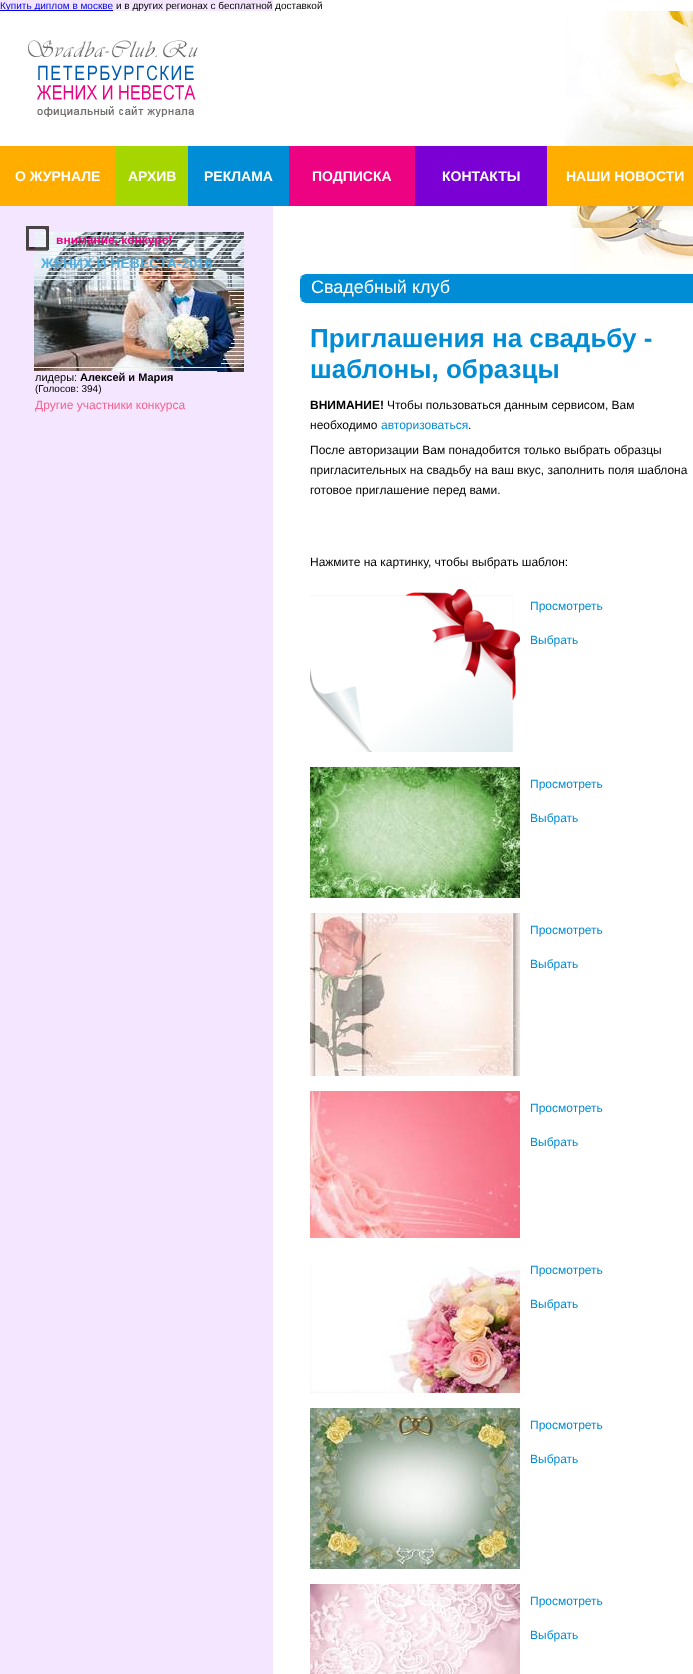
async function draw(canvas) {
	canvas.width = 693;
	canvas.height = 1674;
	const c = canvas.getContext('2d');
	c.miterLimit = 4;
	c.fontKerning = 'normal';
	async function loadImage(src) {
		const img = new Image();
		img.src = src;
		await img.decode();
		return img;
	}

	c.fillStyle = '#fff';
	c.fillRect(0, 0, 693, 1674);
	c.fillStyle = '#f4e6fe';
	c.fillRect(0, 0, 273, 1674);
	c.fillStyle = '#00e';
	c.fillRect(0, 10, 113, 1);
	c.font = '10px Liberation Sans';
	c.fillText('Купить диплом в москве', 0, 9);
	c.fillStyle = '#000';
	c.fillText('и в других регионах с бесплатной доставкой', 116, 9);
	c.fillStyle = '#fff';
	c.fillRect(0, 11, 273, 135);
	c.drawImage(await loadImage('img1.png'), 565, 11, 128, 135);
	c.drawImage(await loadImage('img2.png'), 28, 40, 170, 77);
	c.drawImage(await loadImage('img3.png'), 571, 206, 122, 67);
	c.fillStyle = '#ffae00';
	c.fillRect(0, 146, 116, 60);
	c.font = 'bold 14px Liberation Sans';
	c.fillStyle = '#fff';
	c.fillText('О ЖУРНАЛЕ', 15, 181);
	c.fillStyle = '#a6d600';
	c.fillRect(116, 146, 72, 60);
	c.fillStyle = '#fff';
	c.fillText('АРХИВ', 128, 181);
	c.fillStyle = '#008dd6';
	c.fillRect(188, 146, 101, 60);
	c.fillStyle = '#fff';
	c.fillText('РЕКЛАМА', 204, 181);
	c.fillStyle = '#ed0281';
	c.fillRect(289, 146, 126, 60);
	c.fillStyle = '#fff';
	c.fillText('ПОДПИСКА', 312, 181);
	c.fillStyle = '#7b00d3';
	c.fillRect(415, 146, 132, 60);
	c.fillStyle = '#fff';
	c.fillText('КОНТАКТЫ', 442, 181);
	c.fillStyle = '#ffae00';
	c.fillRect(547, 146, 146, 60);
	c.fillStyle = '#fff';
	c.fillText('НАШИ НОВОСТИ', 566, 181);
	c.drawImage(await loadImage('img6.png'), 34, 232, 210, 140);
	c.drawImage(await loadImage('img5.png'), 34, 231, 210, 141);
	c.drawImage(await loadImage('img4.png'), 26, 226, 23, 25);
	c.font = 'bold 12px Liberation Sans';
	c.fillStyle = '#ed0281';
	c.fillText('внимание, конкурс!', 56, 244);
	c.font = 'bold 14px Liberation Sans';
	c.fillStyle = '#4fb0e2';
	c.fillText('ЖЕНИХ И НЕВЕСТА-2016', 41, 268);
	c.font = '11px Liberation Sans';
	c.fillStyle = '#000';
	c.fillText('лидеры:', 35, 381);
	c.font = 'bold 11px Liberation Sans';
	c.fillText('Алексей и Мария', 80, 381);
	c.font = '10px Liberation Sans';
	c.fillText('(Голосов: 394)', 35, 392);
	c.font = '12px Liberation Sans';
	c.fillStyle = '#f8618d';
	c.fillText('Другие участники конкурса', 35, 409);
	c.fillStyle = '#008dd6';
	c.fillRect(306, 274, 387, 29);
	c.drawImage(await loadImage('img7.png'), 300, 274, 6, 29);
	c.font = '18px Liberation Sans';
	c.fillStyle = '#fff';
	c.fillText('Свадебный клуб', 311, 293);
	c.font = 'bold 26px Liberation Sans';
	c.fillStyle = '#008dd6';
	c.fillText('Приглашения на свадьбу -', 310, 347);
	c.fillText('шаблоны, образцы', 310, 378);
	c.font = 'bold 12px Liberation Sans';
	c.fillStyle = '#000';
	c.fillText('ВНИМАНИЕ!', 310, 409);
	c.font = '12px Liberation Sans';
	c.fillText('Чтобы пользоваться данным сервисом, Вам', 387, 409);
	c.fillText('необходимо', 310, 429);
	c.fillStyle = '#008dd6';
	c.fillText('авторизоваться', 381, 429);
	c.fillStyle = '#000';
	for (const [text, x, y] of [
		['.', 468, 429],
		['После авторизации Вам понадобится только выбрать образцы', 310, 454],
		['пригласительных на свадьбу на ваш вкус, заполнить поля шаблона', 310, 474],
		['готовое приглашение перед вами.', 310, 494],
		['Нажмите на картинку, чтобы выбрать шаблон:', 310, 566],
	]) {
		c.fillText(text, x, y);
	}
	c.drawImage(await loadImage('img8.png'), 310, 589, 210, 163);
	c.fillStyle = '#008dd6';
	c.fillText('Просмотреть', 530, 610);
	c.fillText('Выбрать', 530, 644);
	c.drawImage(await loadImage('img9.png'), 310, 767, 210, 131);
	c.fillText('Просмотреть', 530, 788);
	c.fillText('Выбрать', 530, 822);
	c.drawImage(await loadImage('img10.png'), 310, 913, 210, 163);
	c.fillText('Просмотреть', 530, 934);
	c.fillText('Выбрать', 530, 968);
	c.drawImage(await loadImage('img11.png'), 310, 1091, 210, 147);
	c.fillText('Просмотреть', 530, 1112);
	c.fillText('Выбрать', 530, 1146);
	c.drawImage(await loadImage('img12.png'), 310, 1266, 210, 127);
	c.fillText('Просмотреть', 530, 1274);
	c.fillText('Выбрать', 530, 1308);
	c.drawImage(await loadImage('img13.png'), 310, 1408, 210, 161);
	c.fillText('Просмотреть', 530, 1429);
	c.fillText('Выбрать', 530, 1463);
	c.drawImage(await loadImage('img14.png'), 310, 1584, 210, 90);
	c.fillText('Просмотреть', 530, 1605);
	c.fillText('Выбрать', 530, 1639);
}

draw(document.querySelector('canvas'));
